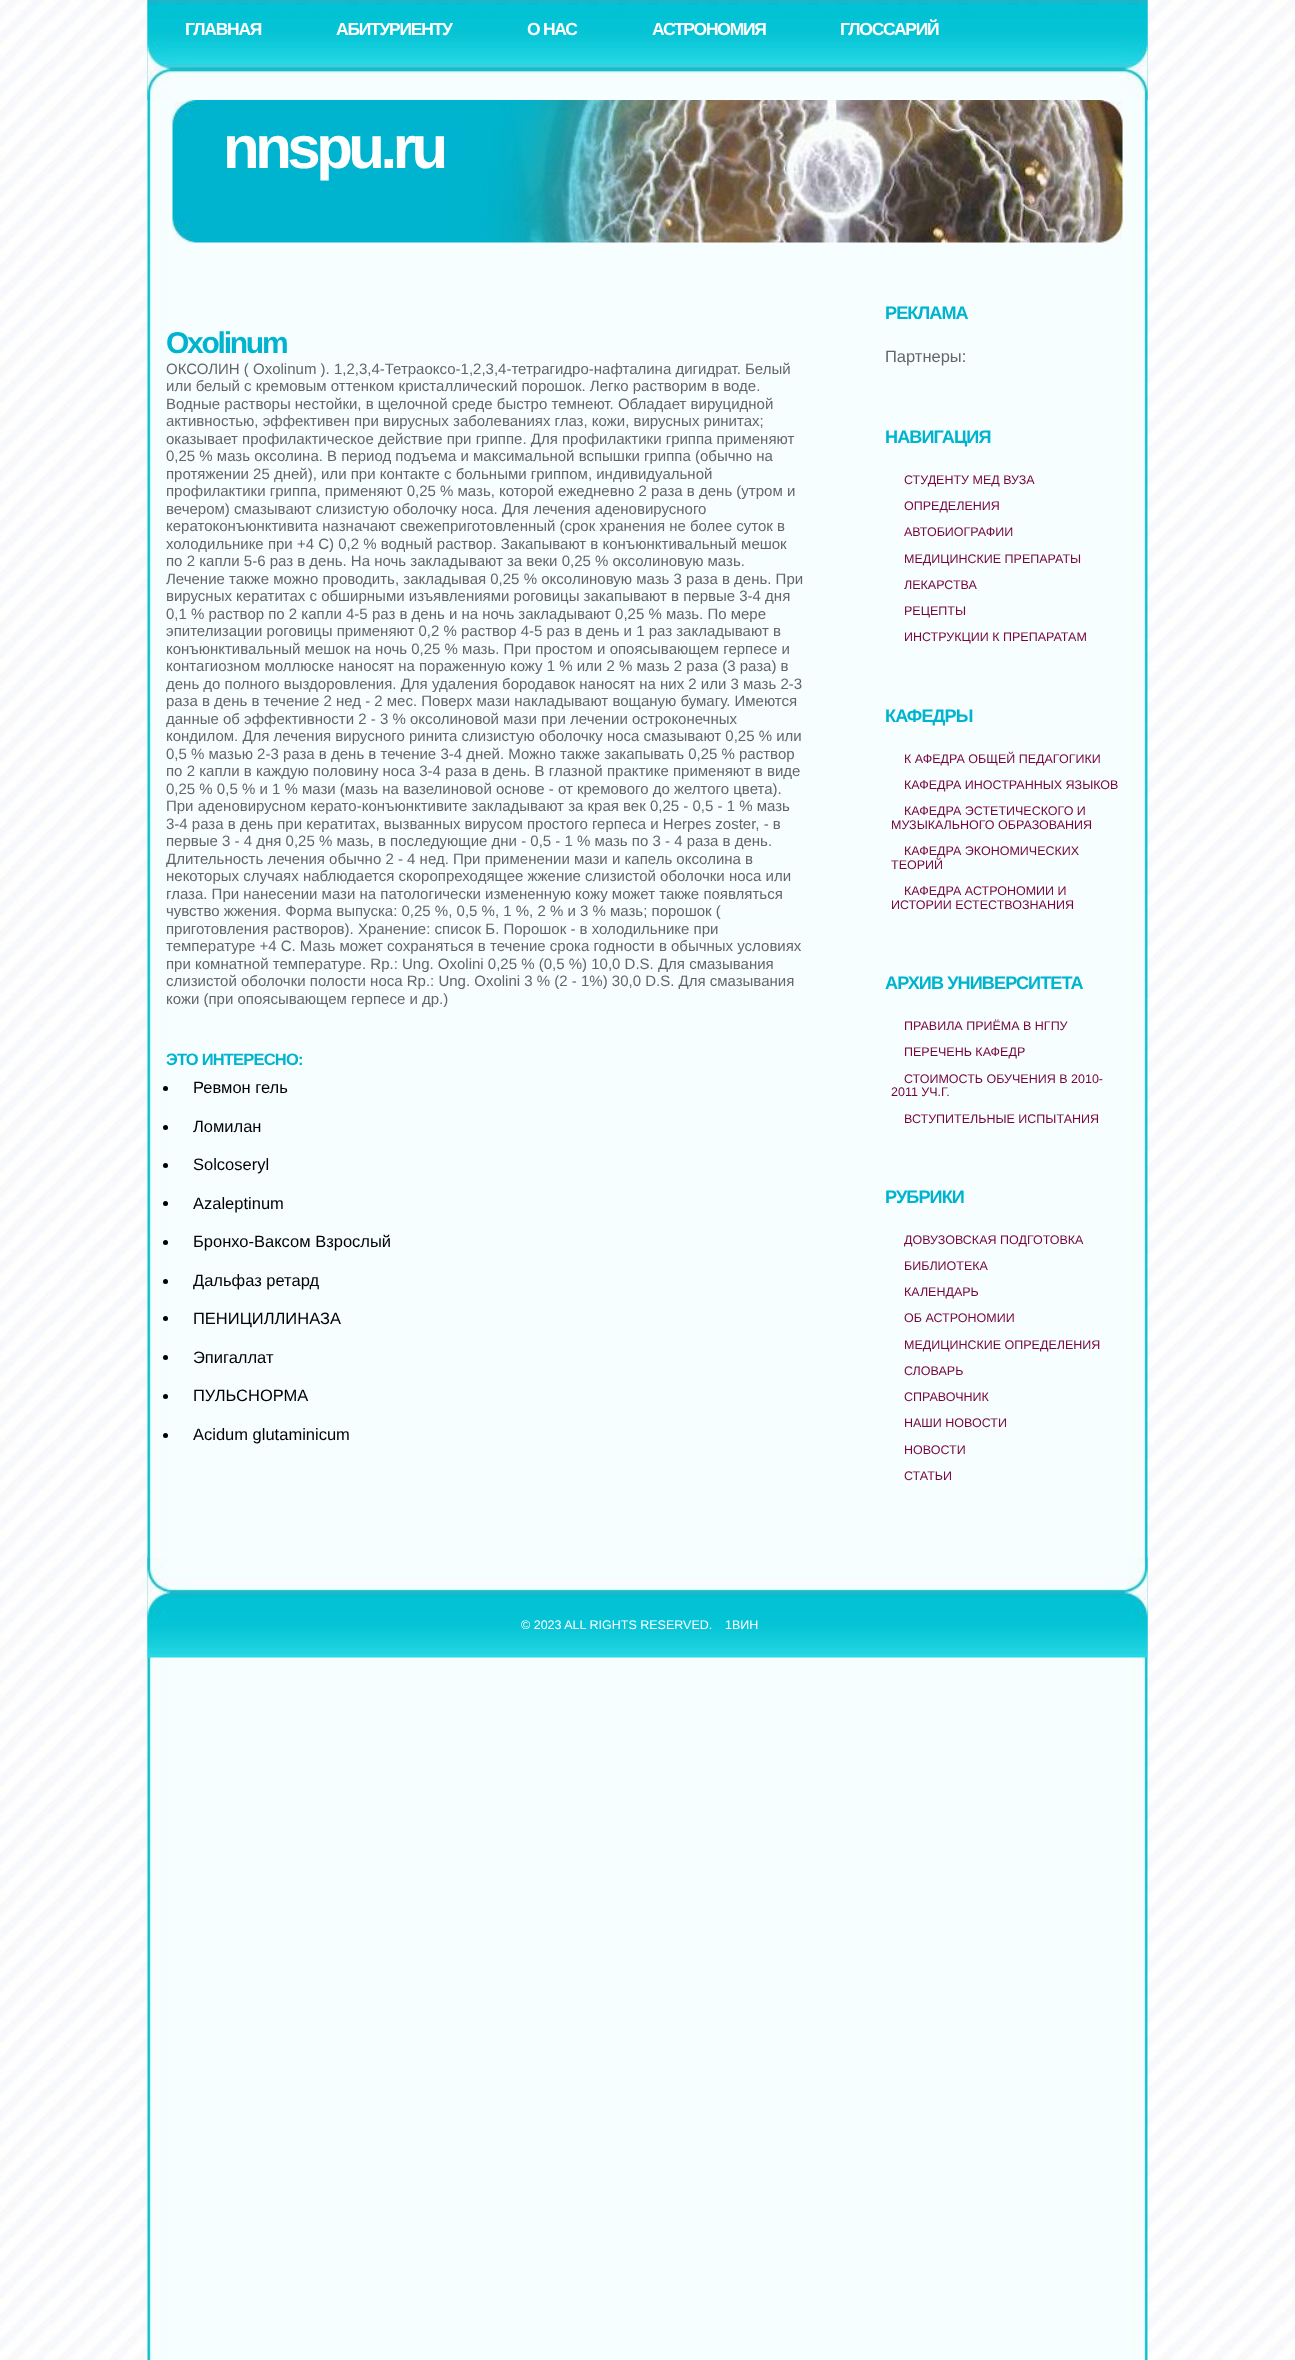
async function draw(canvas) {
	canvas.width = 1295;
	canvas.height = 2360;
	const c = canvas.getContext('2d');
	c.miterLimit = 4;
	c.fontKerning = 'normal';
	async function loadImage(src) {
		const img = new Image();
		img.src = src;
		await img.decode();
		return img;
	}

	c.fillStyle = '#fff';
	c.fillRect(0, 0, 1295, 2360);
	c.drawImage(await loadImage('img1.png'), 0, 0, 1295, 2360);
	c.drawImage(await loadImage('img2.png'), 147, 0, 1001, 2360);
	c.drawImage(await loadImage('img3.png'), 147, 0, 1001, 100);
	c.letterSpacing = '-1.25px';
	c.font = 'bold 17.5px Liberation Sans';
	for (const [text, x, y] of [
		['ГЛАВНАЯ', 185, 35],
		['АБИТУРИЕНТУ', 336, 35],
		['О НАС', 527, 35],
		['АСТРОНОМИЯ', 652, 35],
		['ГЛОССАРИЙ', 840, 35],
	]) {
		c.fillText(text, x, y);
	}
	c.drawImage(await loadImage('img4.png'), 172, 100, 951, 143);
	c.letterSpacing = '-4.5px';
	c.font = 'bold 60px Liberation Sans';
	c.fillText('nnspu.ru', 223, 168);
	c.letterSpacing = '-2.25px';
	c.font = 'bold 30px Liberation Sans';
	c.fillStyle = '#00b4ce';
	c.fillText('Oxolinum', 166, 353);
	c.letterSpacing = '0px';
	c.font = '15px Liberation Sans';
	c.fillStyle = '#666';
	for (const [text, x, y] of [
		['ОКСОЛИН ( Oxolinum ). 1,2,3,4-Тетраоксо-1,2,3,4-тетрагидро-нафталина дигидрат. Белый', 166, 374],
		['или белый с кремовым оттенком кристаллический порошок. Легко растворим в воде.', 166, 391],
		['Водные растворы нестойки, в щелочной среде быстро темнеют. Обладает вируцидной', 166, 409],
		['активностью, эффективен при вирусных заболеваниях глаз, кожи, вирусных ринитах;', 166, 426],
		['оказывает профилактическое действие при гриппе. Для профилактики гриппа применяют', 166, 444],
		['0,25 % мазь оксолина. В период подъема и максимальной вспышки гриппа (обычно на', 166, 461],
		['протяжении 25 дней), или при контакте с больными гриппом, индивидуальной', 166, 479],
		['профилактики гриппа, применяют 0,25 % мазь, которой ежедневно 2 раза в день (утром и', 166, 496],
		['вечером) смазывают слизистую оболочку носа. Для лечения аденовирусного', 166, 514],
		['кератоконъюнктивита назначают свежеприготовленный (срок хранения не более суток в', 166, 531],
		['холодильнике при +4 С) 0,2 % водный раствор. Закапывают в конъюнктивальный мешок', 166, 549],
		['по 2 капли 5-6 раз в день. На ночь закладывают за веки 0,25 % оксолиновую мазь.', 166, 566],
		['Лечение также можно проводить, закладывая 0,25 % оксолиновую мазь 3 раза в день. При', 166, 584],
		['вирусных кератитах с обширными изъявлениями роговицы закапывают в первые 3-4 дня', 166, 601],
		['0,1 % раствор по 2 капли 4-5 раз в день и на ночь закладывают 0,25 % мазь. По мере', 166, 619],
		['эпителизации роговицы применяют 0,2 % раствор 4-5 раз в день и 1 раз закладывают в', 166, 636],
		['конъюнктивальный мешок на ночь 0,25 % мазь. При простом и опоясывающем герпесе и', 166, 654],
		['контагиозном моллюске наносят на пораженную кожу 1 % или 2 % мазь 2 раза (3 раза) в', 166, 671],
		['день до полного выздоровления. Для удаления бородавок наносят на них 2 или 3 мазь 2-3', 166, 689],
		['раза в день в течение 2 нед - 2 мес. Поверх мази накладывают вощаную бумагу. Имеются', 166, 706],
		['данные об эффективности 2 - 3 % оксолиновой мази при лечении остроконечных', 166, 724],
		['кондилом. Для лечения вирусного ринита слизистую оболочку носа смазывают 0,25 % или', 166, 741],
		['0,5 % мазью 2-3 раза в день в течение 3-4 дней. Можно также закапывать 0,25 % раствор', 166, 759],
		['по 2 капли в каждую половину носа 3-4 раза в день. В глазной практике применяют в виде', 166, 776],
		['0,25 % 0,5 % и 1 % мази (мазь на вазелиновой основе - от кремового до желтого цвета).', 166, 794],
		['При аденовирусном керато-конъюнктивите закладывают за края век 0,25 - 0,5 - 1 % мазь', 166, 811],
		['3-4 раза в день при кератитах, вызванных вирусом простого герпеса и Herpes zoster, - в', 166, 829],
		['первые 3 - 4 дня 0,25 % мазь, в последующие дни - 0,5 - 1 % мазь по 3 - 4 раза в день.', 166, 846],
		['Длительность лечения обычно 2 - 4 нед. При применении мази и капель оксолина в', 166, 864],
		['некоторых случаях наблюдается скоропреходящее жжение слизистой оболочки носа или', 166, 881],
		['глаза. При нанесении мази на патологически измененную кожу может также появляться', 166, 899],
		['чувство жжения. Форма выпуска: 0,25 %, 0,5 %, 1 %, 2 % и 3 % мазь; порошок (', 166, 916],
		['приготовления растворов). Хранение: список Б. Порошок - в холодильнике при', 166, 934],
		['температуре +4 С. Мазь может сохраняться в течение срока годности в обычных условиях', 166, 951],
		['при комнатной температуре. Rp.: Ung. Oxolini 0,25 % (0,5 %) 10,0 D.S. Для смазывания', 166, 969],
		['слизистой оболочки полости носа Rp.: Ung. Oxolini 3 % (2 - 1%) 30,0 D.S. Для смазывания', 166, 986],
		['кожи (при опоясывающем герпесе и др.)', 166, 1004],
	]) {
		c.fillText(text, x, y);
	}
	c.letterSpacing = '-0.8px';
	c.font = 'bold 16.5px Liberation Sans';
	c.fillStyle = '#00b4ce';
	c.fillText('ЭТО ИНТЕРЕСНО:', 166, 1065);
	c.fillStyle = '#000';
	c.beginPath();
	c.arc(165.5, 1088.5, 2.5, 0, 2 * Math.PI);
	c.fill();
	c.letterSpacing = '0px';
	c.font = '16.5px Liberation Sans';
	c.fillText('Ревмон гель', 193, 1093);
	c.beginPath();
	c.arc(165.5, 1127.5, 2.5, 0, 2 * Math.PI);
	c.fill();
	c.fillText('Ломилан', 193, 1132);
	c.beginPath();
	c.arc(165.5, 1165.5, 2.5, 0, 2 * Math.PI);
	c.fill();
	c.fillText('Solcoseryl', 193, 1170);
	c.beginPath();
	c.arc(165.5, 1203.5, 2.5, 0, 2 * Math.PI);
	c.fill();
	c.fillText('Azaleptinum', 193, 1209);
	c.beginPath();
	c.arc(165.5, 1242.5, 2.5, 0, 2 * Math.PI);
	c.fill();
	c.fillText('Бронхо-Ваксом Взрослый', 193, 1247);
	c.beginPath();
	c.arc(165.5, 1281.5, 2.5, 0, 2 * Math.PI);
	c.fill();
	c.fillText('Дальфаз ретард', 193, 1286);
	c.beginPath();
	c.arc(165.5, 1318.5, 2.5, 0, 2 * Math.PI);
	c.fill();
	c.fillText('ПЕНИЦИЛЛИНАЗА', 193, 1324);
	c.beginPath();
	c.arc(165.5, 1357.5, 2.5, 0, 2 * Math.PI);
	c.fill();
	c.fillText('Эпигаллат', 193, 1363);
	c.beginPath();
	c.arc(165.5, 1396.5, 2.5, 0, 2 * Math.PI);
	c.fill();
	c.fillText('ПУЛЬСНОРМА', 193, 1401);
	c.beginPath();
	c.arc(165.5, 1435.5, 2.5, 0, 2 * Math.PI);
	c.fill();
	c.fillText('Acidum glutaminicum', 193, 1440);
	c.letterSpacing = '-0.9px';
	c.font = 'bold 18.1px Liberation Sans';
	c.fillStyle = '#00b4ce';
	c.fillText('РЕКЛАМА', 885, 319);
	c.letterSpacing = '0px';
	c.font = '16.5px Liberation Sans';
	c.fillStyle = '#666';
	c.fillText('Партнеры:', 885, 362);
	c.letterSpacing = '-0.9px';
	c.font = 'bold 18.1px Liberation Sans';
	c.fillStyle = '#00b4ce';
	c.fillText('НАВИГАЦИЯ', 885, 443);
	c.letterSpacing = '0px';
	c.font = '12.5px Liberation Sans';
	c.fillStyle = '#75043d';
	for (const [text, x, y] of [
		['СТУДЕНТУ МЕД ВУЗА', 904, 484],
		['ОПРЕДЕЛЕНИЯ', 904, 510],
		['АВТОБИОГРАФИИ', 904, 536],
		['МЕДИЦИНСКИЕ ПРЕПАРАТЫ', 904, 563],
		['ЛЕКАРСТВА', 904, 589],
		['РЕЦЕПТЫ', 904, 615],
		['ИНСТРУКЦИИ К ПРЕПАРАТАМ', 904, 641],
	]) {
		c.fillText(text, x, y);
	}
	c.letterSpacing = '-0.9px';
	c.font = 'bold 18.1px Liberation Sans';
	c.fillStyle = '#00b4ce';
	c.fillText('КАФЕДРЫ', 885, 722);
	c.letterSpacing = '0px';
	c.font = '12.5px Liberation Sans';
	c.fillStyle = '#75043d';
	for (const [text, x, y] of [
		['К АФЕДРА ОБЩЕЙ ПЕДАГОГИКИ', 904, 763],
		['КАФЕДРА ИНОСТРАННЫХ ЯЗЫКОВ', 904, 789],
		['КАФЕДРА ЭСТЕТИЧЕСКОГО И', 904, 815],
		['МУЗЫКАЛЬНОГО ОБРАЗОВАНИЯ', 891, 829],
		['КАФЕДРА ЭКОНОМИЧЕСКИХ', 904, 855],
		['ТЕОРИЙ', 891, 869],
		['КАФЕДРА АСТРОНОМИИ И', 904, 895],
		['ИСТОРИИ ЕСТЕСТВОЗНАНИЯ', 891, 909],
	]) {
		c.fillText(text, x, y);
	}
	c.letterSpacing = '-0.9px';
	c.font = 'bold 18.1px Liberation Sans';
	c.fillStyle = '#00b4ce';
	c.fillText('АРХИВ УНИВЕРСИТЕТА', 885, 989);
	c.letterSpacing = '0px';
	c.font = '12.5px Liberation Sans';
	c.fillStyle = '#75043d';
	for (const [text, x, y] of [
		['ПРАВИЛА ПРИЁМА В НГПУ', 904, 1030],
		['ПЕРЕЧЕНЬ КАФЕДР', 904, 1056],
		['СТОИМОСТЬ ОБУЧЕНИЯ В 2010-', 904, 1083],
		['2011 УЧ.Г.', 891, 1096],
		['ВСТУПИТЕЛЬНЫЕ ИСПЫТАНИЯ', 904, 1123],
	]) {
		c.fillText(text, x, y);
	}
	c.letterSpacing = '-0.9px';
	c.font = 'bold 18.1px Liberation Sans';
	c.fillStyle = '#00b4ce';
	c.fillText('РУБРИКИ', 885, 1203);
	c.letterSpacing = '0px';
	c.font = '12.5px Liberation Sans';
	c.fillStyle = '#75043d';
	for (const [text, x, y] of [
		['ДОВУЗОВСКАЯ ПОДГОТОВКА', 904, 1244],
		['БИБЛИОТЕКА', 904, 1270],
		['КАЛЕНДАРЬ', 904, 1296],
		['ОБ АСТРОНОМИИ', 904, 1322],
		['МЕДИЦИНСКИЕ ОПРЕДЕЛЕНИЯ', 904, 1349],
		['СЛОВАРЬ', 904, 1375],
		['СПРАВОЧНИК', 904, 1401],
		['НАШИ НОВОСТИ', 904, 1427],
		['НОВОСТИ', 904, 1454],
		['СТАТЬИ', 904, 1480],
	]) {
		c.fillText(text, x, y);
	}
	c.drawImage(await loadImage('img5.png'), 147, 1557, 1001, 101);
	c.fillStyle = '#fff';
	c.fillText('© 2023 ALL RIGHTS RESERVED.', 521, 1629);
	c.fillText('1ВИН', 725, 1629);
}

draw(document.querySelector('canvas'));
